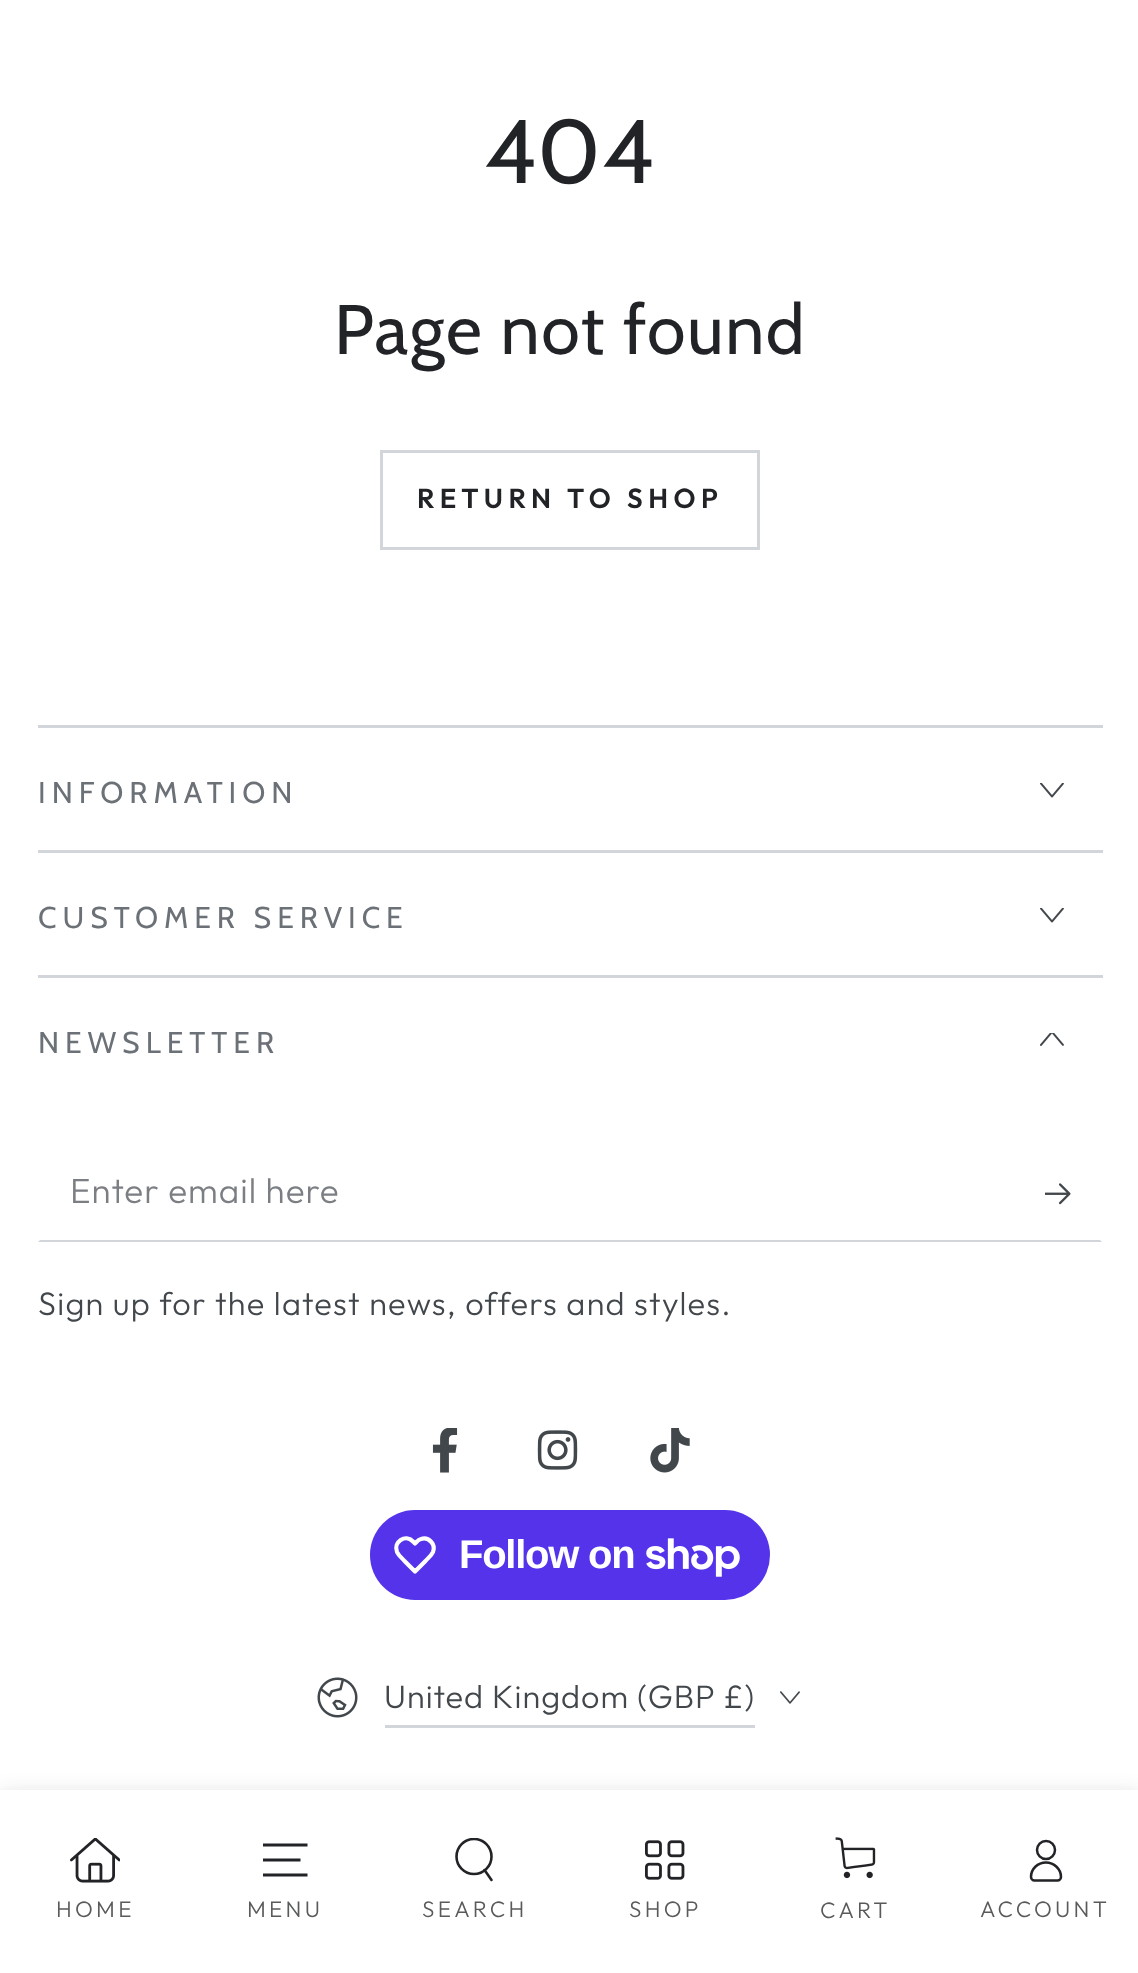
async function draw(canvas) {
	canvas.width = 1138;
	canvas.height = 1973;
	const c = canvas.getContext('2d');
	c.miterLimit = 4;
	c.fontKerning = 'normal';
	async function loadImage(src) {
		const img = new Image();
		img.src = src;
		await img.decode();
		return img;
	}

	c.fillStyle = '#fff';
	c.fillRect(0, 0, 1138, 1973);
	c.letterSpacing = '1.5px';
	c.font = '90px Cabin';
	c.fillStyle = '#212326';
	c.fillText('404', 484, 183);
	c.font = '70px Cabin';
	c.fillText('Page not found', 334, 354);
	c.strokeStyle = '#d2d5d9';
	c.lineWidth = 3;
	c.strokeRect(381.5, 451.5, 377, 97);
	c.letterSpacing = '5.5px';
	c.font = '600 27.5px Outfit';
	c.fillText('RETURN TO SHOP', 417, 508);
	c.fillStyle = '#d2d5d9';
	c.fillRect(38, 725, 1065, 3);
	c.fillRect(38, 850, 1065, 3);
	c.letterSpacing = '6px';
	c.font = '30px Cabin';
	c.fillStyle = '#6b7177';
	c.fillText('INFORMATION', 38, 803);
	c.drawImage(await loadImage('img1.png'), 1040, 783, 24, 15);
	c.fillStyle = '#d2d5d9';
	c.fillRect(38, 975, 1065, 3);
	c.fillStyle = '#6b7177';
	c.fillText('CUSTOMER SERVICE', 38, 928);
	c.drawImage(await loadImage('img1.png'), 1040, 908, 24, 15);
	c.fillText('NEWSLETTER', 38, 1053);
	c.drawImage(await loadImage('img2.png'), 1040, 1033, 24, 13);
	c.fillStyle = '#d2d5d9';
	c.beginPath();
	c.moveTo(1102, 1242);
	c.lineTo(38, 1242);
	c.lineTo(40, 1240);
	c.lineTo(1100, 1240);
	c.closePath();
	c.fill();
	c.letterSpacing = '1px';
	c.font = '300 35px Outfit';
	c.fillStyle = '#7b7e82';
	c.fillText('Enter email here', 70, 1203);
	c.drawImage(await loadImage('img3.png'), 1045, 1183, 26, 22);
	c.letterSpacing = '1.25px';
	c.font = '300 32.5px Outfit';
	c.fillStyle = '#42474c';
	c.fillText('Sign up for the latest news, offers and styles.', 38, 1315);
	c.drawImage(await loadImage('img4.png'), 432, 1428, 26, 45);
	c.drawImage(await loadImage('img5.png'), 537, 1430, 41, 40);
	c.drawImage(await loadImage('img6.png'), 650, 1428, 40, 45);
	c.fillStyle = '#5433eb';
	c.beginPath();
	c.roundRect(370, 1510, 400, 90, 45);
	c.fill();
	c.beginPath();
	c.moveTo(413, 1541.5);
	c.lineTo(415, 1543.5);
	c.bezierCurveTo(417, 1541.5, 418.5, 1539.5, 421, 1539);
	c.bezierCurveTo(429, 1536.5, 436, 1544.5, 433, 1552);
	c.bezierCurveTo(431.5, 1555.5, 428, 1558, 425.5, 1561);
	c.lineTo(415, 1571.5);
	c.lineTo(404.5, 1561);
	c.bezierCurveTo(402, 1558, 398.5, 1555.5, 397, 1552);
	c.bezierCurveTo(393, 1542, 405.5, 1533.5, 413, 1541.5);
	c.closePath();
	c.strokeStyle = '#fff';
	c.lineWidth = 4.2;
	c.lineJoin = 'round';
	c.stroke();
	c.letterSpacing = '-1.25px';
	c.font = 'bold 40px Liberation Sans';
	c.fillStyle = '#fff';
	c.fillText('Follow on', 459, 1568);
	c.drawImage(await loadImage('img7.png'), 646, 1538, 94, 39);
	c.drawImage(await loadImage('img8.png'), 317, 1677, 41, 41);
	c.fillStyle = '#d2d5d9';
	c.fillRect(385, 1725, 370, 3);
	c.letterSpacing = '1px';
	c.font = '300 32.5px Outfit';
	c.fillStyle = '#42474c';
	c.fillText('United Kingdom (GBP £)', 384, 1708);
	c.drawImage(await loadImage('img9.png'), 780, 1691, 20, 13);
	c.fillStyle = '#21232626';
	c.filter = 'blur(10px)';
	c.beginPath();
	c.rect(0, 1793, 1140, 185);
	c.fill();
	c.filter = 'none';
	c.fillStyle = '#fff';
	c.fillRect(0, 1790, 1138, 183);
	c.drawImage(await loadImage('img10.png'), 70, 1838, 50, 45);
	c.letterSpacing = '3.25px';
	c.font = '300 22.5px Outfit';
	c.fillStyle = '#595a5c';
	c.fillText('HOME', 56, 1917);
	c.save();
	c.beginPath();
	c.rect(263, 1838, 45, 45);
	c.clip();
	c.beginPath();
	c.moveTo(262.5, 1875);
	c.lineTo(307.5, 1875);
	c.moveTo(262.5, 1860);
	c.lineTo(300.5, 1860);
	c.moveTo(262.5, 1845);
	c.lineTo(307.5, 1845);
	c.strokeStyle = '#212326';
	c.lineWidth = 2.8;
	c.lineJoin = 'miter';
	c.stroke();
	c.restore();
	c.fillText('MENU', 247, 1917);
	c.save();
	c.beginPath();
	c.rect(455, 1838, 40, 45);
	c.clip();
	c.beginPath();
	c.arc(474, 1856.5, 17.5, 0, 2 * Math.PI);
	c.strokeStyle = '#212326';
	c.lineWidth = 2.6;
	c.stroke();
	c.restore();
	c.beginPath();
	c.moveTo(484.5, 1870);
	c.lineTo(491.5, 1880);
	c.strokeStyle = '#212326';
	c.lineWidth = 2.6;
	c.lineCap = 'round';
	c.lineJoin = 'miter';
	c.stroke();
	c.fillText('SEARCH', 422, 1917);
	c.drawImage(await loadImage('img11.png'), 645, 1840, 40, 40);
	c.fillText('SHOP', 629, 1917);
	c.drawImage(await loadImage('img12.png'), 835, 1837, 41, 42);
	c.fillText('CART', 820, 1918);
	c.beginPath();
	c.moveTo(1046, 1862.5);
	c.bezierCurveTo(1037.5, 1862.5, 1031, 1869, 1031, 1877);
	c.bezierCurveTo(1031, 1878.5, 1032.5, 1880.5, 1034.5, 1880.5);
	c.lineTo(1057.5, 1880.5);
	c.bezierCurveTo(1059.5, 1880.5, 1061, 1878.5, 1061, 1877);
	c.bezierCurveTo(1061, 1869, 1054, 1862.5, 1046, 1862.5);
	c.closePath();
	c.lineWidth = 2.5;
	c.lineCap = 'butt';
	c.stroke();
	c.beginPath();
	c.arc(1046, 1850, 9, 0, 2 * Math.PI);
	c.stroke();
	c.fillText('ACCOUNT', 980, 1917);
}

draw(document.querySelector('canvas'));
